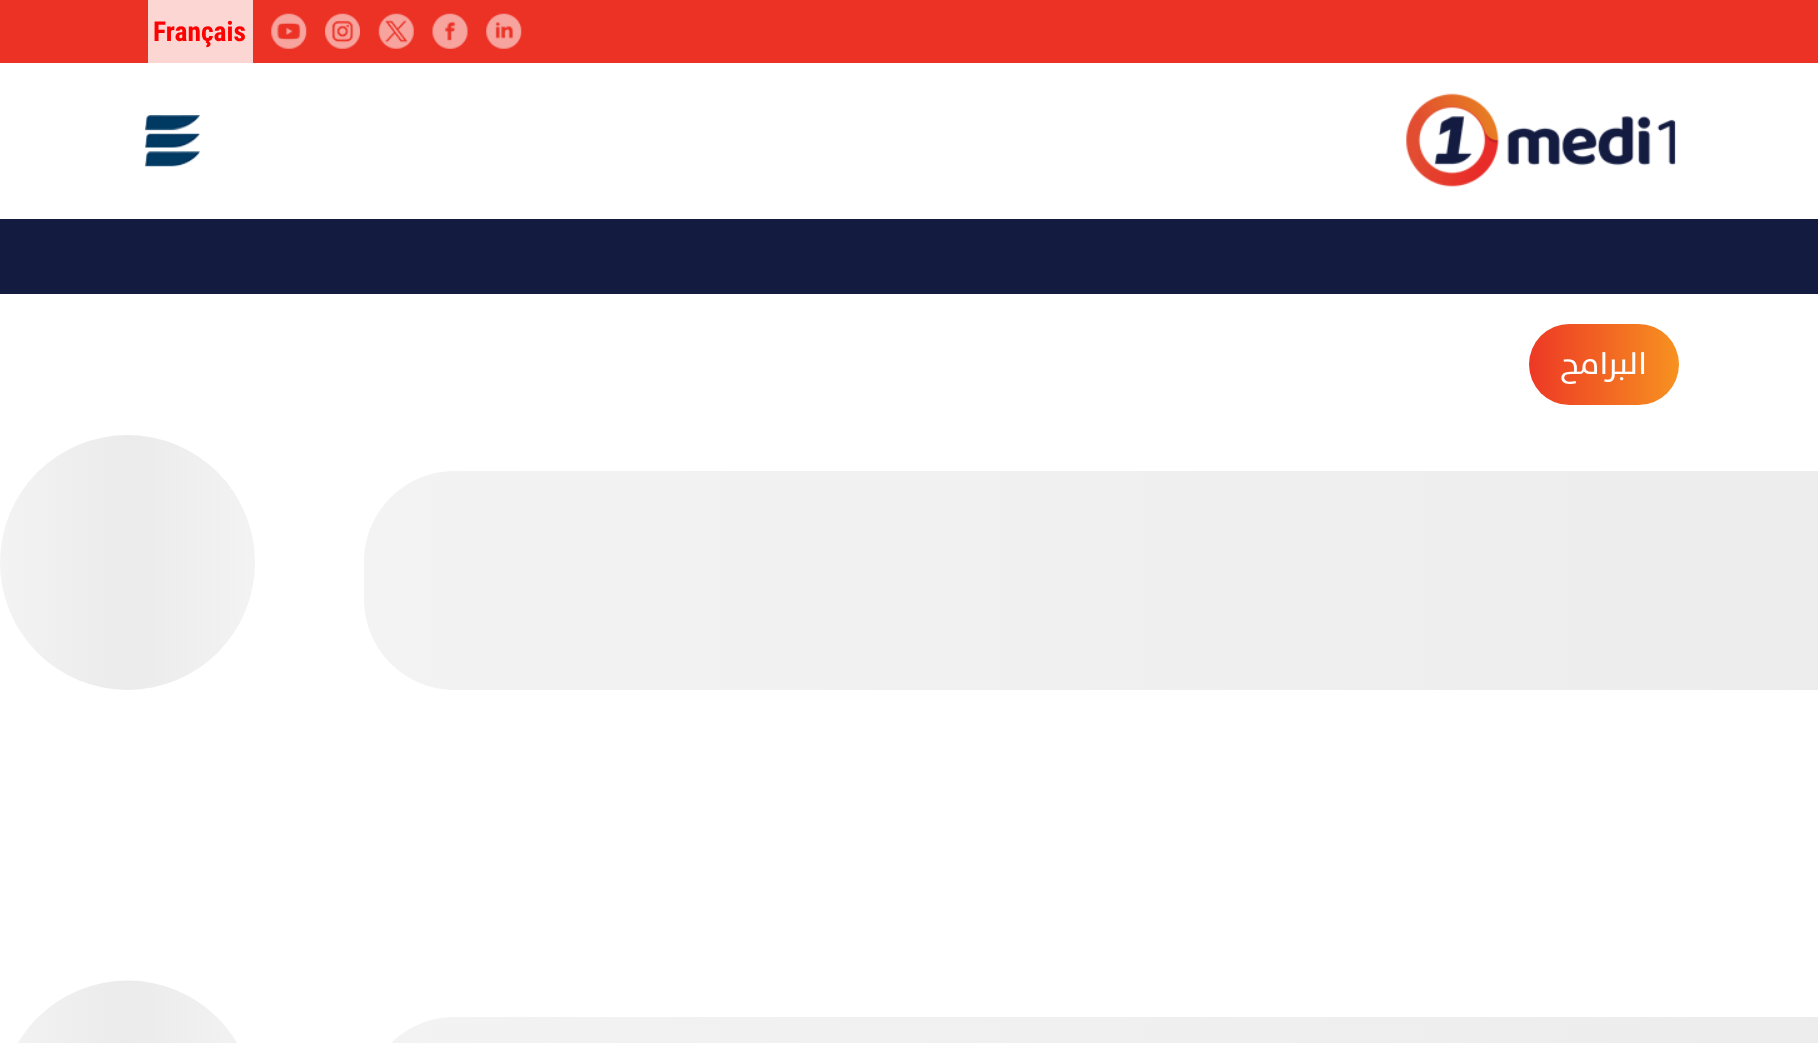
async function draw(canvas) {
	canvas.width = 1818;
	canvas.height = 1043;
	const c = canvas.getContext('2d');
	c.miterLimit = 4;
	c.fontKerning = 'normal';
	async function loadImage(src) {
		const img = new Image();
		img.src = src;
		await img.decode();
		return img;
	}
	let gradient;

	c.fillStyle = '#fff';
	c.fillRect(0, 0, 1818, 1043);
	c.fillStyle = '#ec3125';
	c.fillRect(0, 0, 1818, 63);
	c.fillStyle = '#fbd6d3';
	c.fillRect(148, 0, 105, 63);
	c.font = 'bold 27.5px Roboto Condensed';
	c.fillStyle = '#f00';
	c.fillText('Français', 153, 41);
	c.drawImage(await loadImage('img1.png'), 271, 13, 36, 36);
	c.drawImage(await loadImage('img2.png'), 325, 13, 35, 36);
	c.drawImage(await loadImage('img3.png'), 378, 13, 36, 36);
	c.drawImage(await loadImage('img4.png'), 432, 13, 36, 36);
	c.drawImage(await loadImage('img5.png'), 486, 13, 36, 36);
	c.drawImage(await loadImage('img6.png'), 145, 115, 55, 52);
	c.drawImage(await loadImage('img7.png'), 1406, 93, 270, 94);
	c.fillStyle = '#131b41';
	c.fillRect(0, 219, 1818, 75);
	gradient = c.createLinearGradient(1529, 364, 1679, 364);
	gradient.addColorStop(0, '#f26522');
	gradient.addColorStop(0, '#ed3825');
	gradient.addColorStop(1, '#f79220');
	c.fillStyle = gradient;
	c.beginPath();
	c.roundRect(1529, 324, 150, 81, 40.5);
	c.fill();
	c.direction = 'rtl';
	c.font = '31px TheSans';
	c.fillStyle = '#fff';
	c.fillText('البرامح', 1647, 374);
	gradient = c.createLinearGradient(0, 435, 255, 435);
	gradient.addColorStop(0, '#f3f3f3');
	gradient.addColorStop(0.5, '#ecebeb');
	gradient.addColorStop(1, '#f3f3f3');
	c.fillStyle = gradient;
	c.beginPath();
	c.arc(127.5, 562.5, 127.5, 0, 2 * Math.PI);
	c.fill();
	gradient = c.createLinearGradient(364, 471, 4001, 471);
	gradient.addColorStop(0, '#f3f3f3');
	gradient.addColorStop(0.5, '#ecebeb');
	gradient.addColorStop(1, '#f3f3f3');
	c.fillStyle = gradient;
	c.beginPath();
	c.moveTo(455, 471);
	c.lineTo(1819, 471);
	c.lineTo(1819, 690);
	c.lineTo(455, 690);
	c.bezierCurveTo(404.5, 690, 364, 649.5, 364, 599);
	c.lineTo(364, 562);
	c.bezierCurveTo(364, 511.5, 404.5, 471, 455, 471);
	c.closePath();
	c.fill();
	gradient = c.createLinearGradient(0, 981, 255, 981);
	gradient.addColorStop(0, '#f3f3f3');
	gradient.addColorStop(0.5, '#ecebeb');
	gradient.addColorStop(1, '#f3f3f3');
	c.fillStyle = gradient;
	c.beginPath();
	c.arc(127.5, 1108, 127.5, 0, 2 * Math.PI);
	c.fill();
	gradient = c.createLinearGradient(364, 1017, 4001, 1017);
	gradient.addColorStop(0, '#f3f3f3');
	gradient.addColorStop(0.5, '#ecebeb');
	gradient.addColorStop(1, '#f3f3f3');
	c.fillStyle = gradient;
	c.beginPath();
	c.moveTo(455, 1017);
	c.lineTo(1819, 1017);
	c.lineTo(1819, 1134);
	c.lineTo(455, 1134);
	c.bezierCurveTo(404.5, 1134, 364, 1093.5, 364, 1043);
	c.lineTo(364, 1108);
	c.bezierCurveTo(364, 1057.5, 404.5, 1017, 455, 1017);
	c.closePath();
	c.fill();
}

draw(document.querySelector('canvas'));
